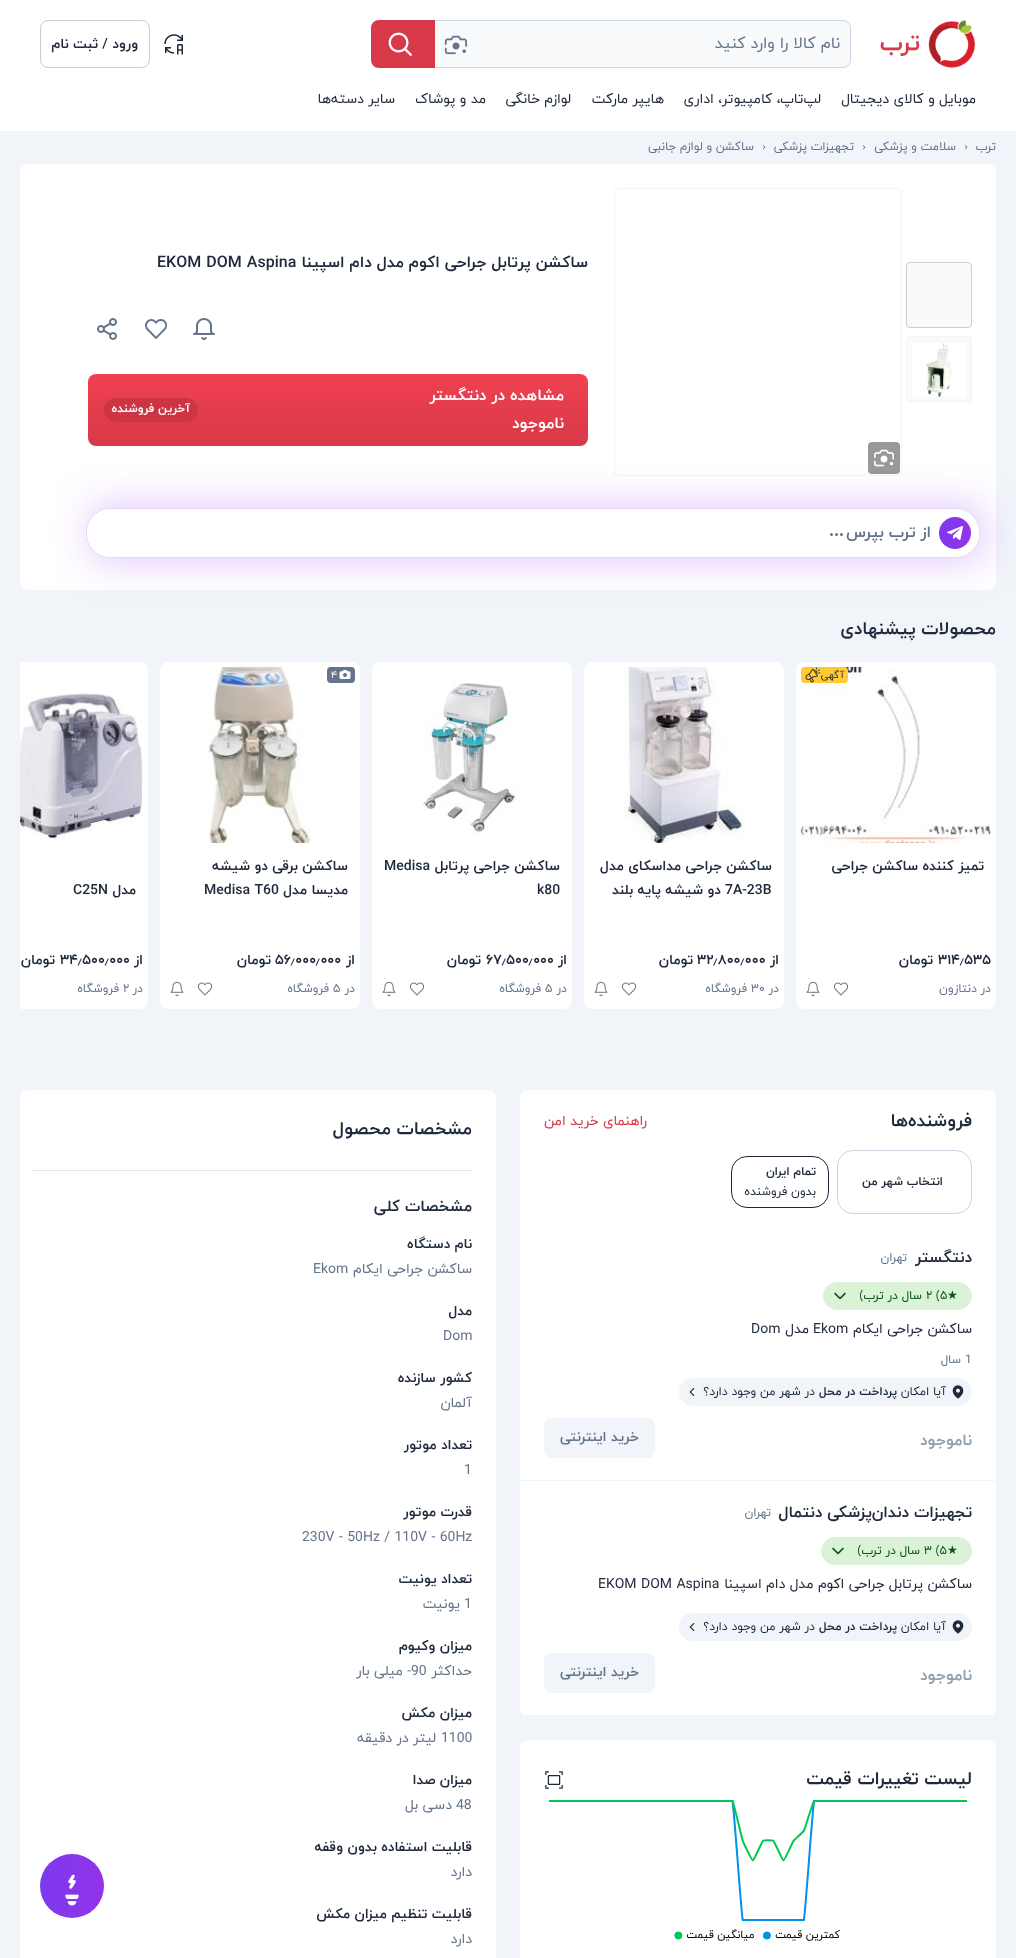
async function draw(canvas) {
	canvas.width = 1016;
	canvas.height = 1958;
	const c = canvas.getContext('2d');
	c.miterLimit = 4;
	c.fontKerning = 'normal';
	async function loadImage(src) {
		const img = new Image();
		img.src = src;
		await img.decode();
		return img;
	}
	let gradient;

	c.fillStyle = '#f1f5f9';
	c.fillRect(0, 0, 1016, 1958);
	c.fillStyle = '#fff';
	c.fillRect(0, 0, 1016, 131);
	c.drawImage(await loadImage('img1.png'), 928, 20, 48, 48);
	c.direction = 'rtl';
	c.font = 'bold 24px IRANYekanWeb';
	c.fillStyle = '#d73948';
	c.fillText('ترب', 920, 50);
	c.fillStyle = '#f8fafc';
	c.beginPath();
	c.roundRect(435, 20, 416, 48, [0, 8, 8, 0]);
	c.fill();
	c.fillStyle = '#cbd5e1';
	c.beginPath();
	c.moveTo(435, 20);
	c.lineTo(843, 20);
	c.bezierCurveTo(847, 20, 851, 24, 851, 28);
	c.lineTo(851, 60);
	c.bezierCurveTo(851, 64, 847, 68, 843, 68);
	c.lineTo(435, 68);
	c.closePath();
	c.moveTo(435, 21);
	c.lineTo(843, 21);
	c.bezierCurveTo(847, 21, 850, 24, 850, 28);
	c.lineTo(850, 60);
	c.bezierCurveTo(850, 64, 847, 67, 843, 67);
	c.lineTo(435, 67);
	c.closePath();
	c.fill('evenodd');
	c.font = '16px IRANYekanWeb';
	c.fillStyle = '#64748b';
	c.fillText('نام کالا را وارد کنید', 840, 48);
	c.drawImage(await loadImage('img2.png'), 444, 35, 23, 20);
	c.fillStyle = '#d73948';
	c.beginPath();
	c.roundRect(371, 20, 64, 48, [8, 0, 0, 8]);
	c.fill();
	c.drawImage(await loadImage('img3.png'), 388, 32, 24, 24);
	c.drawImage(await loadImage('img4.png'), 164, 34, 19, 21);
	c.beginPath();
	c.roundRect(40.5, 20.5, 109, 47, 7.5);
	c.strokeStyle = '#ccc';
	c.stroke();
	c.font = 'bold 14px IRANYekanWeb';
	c.fillStyle = '#1e293b';
	c.fillText('ورود / ثبت نام', 138, 48);
	c.font = '14px IRANYekanWeb';
	for (const [text, x, y] of [
		['موبایل و کالای دیجیتال', 976, 103],
		['لپ‌تاپ، کامپیوتر، اداری', 821, 103],
		['هایپر مارکت', 664, 103],
		['لوازم خانگی', 571, 103],
		['مد و پوشاک', 486, 103],
		['سایر دسته‌ها', 395, 103],
	]) {
		c.fillText(text, x, y);
	}
	c.font = '12px IRANYekanWeb';
	c.fillStyle = '#64748b';
	c.fillText('ترب', 996, 150);
	c.direction = 'ltr';
	c.font = '12px Liberation Serif';
	c.fillText('›', 964, 150);
	c.direction = 'rtl';
	c.font = '12px IRANYekanWeb';
	c.fillText('سلامت و پزشکی', 956, 150);
	c.direction = 'ltr';
	c.font = '12px Liberation Serif';
	c.fillText('›', 862, 150);
	c.direction = 'rtl';
	c.font = '12px IRANYekanWeb';
	c.fillText('تجهیزات پزشکی', 854, 150);
	c.direction = 'ltr';
	c.font = '12px Liberation Serif';
	c.fillText('›', 762, 150);
	c.direction = 'rtl';
	c.font = '12px IRANYekanWeb';
	c.fillText('ساکشن و لوازم جانبی', 754, 150);
	c.fillStyle = '#fff';
	c.beginPath();
	c.roundRect(20, 164, 976, 426, 8);
	c.fill();
	c.fillStyle = '#f8fafc';
	c.beginPath();
	c.roundRect(906.5, 262.5, 65, 65, 3.5);
	c.fill();
	c.strokeStyle = '#cdcdcd';
	c.stroke();
	c.beginPath();
	c.roundRect(906.5, 336.5, 65, 65, 3.5);
	c.fill();
	c.strokeStyle = '#f1f5f9';
	c.stroke();
	c.drawImage(await loadImage('img5.png'), 912, 343, 54, 54);
	c.beginPath();
	c.roundRect(614.5, 188.5, 287, 287, 3.5);
	c.stroke();
	gradient = c.createLinearGradient(338, 374, 338, 446);
	gradient.addColorStop(0, '#f04151');
	gradient.addColorStop(1, '#d73948');
	c.fillStyle = gradient;
	c.beginPath();
	c.roundRect(88, 374, 500, 72, 8);
	c.fill();
	c.fillStyle = '#a855f759';
	c.filter = 'blur(20px)';
	c.beginPath();
	c.rect(92, 506, 890, 54);
	c.fill();
	c.filter = 'none';
	c.fillStyle = '#33333380';
	c.beginPath();
	c.roundRect(868, 442, 32, 32, 4);
	c.fill();
	c.drawImage(await loadImage('img6.png'), 874, 449, 20, 18);
	c.font = 'bold 16px IRANYekanWeb';
	c.fillStyle = '#1e293b';
	c.fillText('ساکشن پرتابل جراحی اکوم مدل دام اسپینا', 588, 267);
	c.direction = 'ltr';
	c.fillText('EKOM DOM Aspina', 157, 267);
	c.drawImage(await loadImage('img7.png'), 193, 318, 22, 22);
	c.drawImage(await loadImage('img8.png'), 145, 319, 22, 20);
	c.drawImage(await loadImage('img9.png'), 97, 318, 20, 22);
	c.direction = 'rtl';
	c.fillStyle = '#fff';
	c.fillText('مشاهده در دنتگستر', 564, 400);
	c.fillText('ناموجود', 564, 428);
	c.fillStyle = '#cc3644';
	c.beginPath();
	c.roundRect(104, 398, 94, 24, 12);
	c.fill();
	c.font = 'bold 12px IRANYekanWeb';
	c.fillStyle = '#fff';
	c.fillText('آخرین فروشنده', 190, 412);
	c.beginPath();
	c.roundRect(86.5, 508.5, 893, 49, 23.5);
	c.fill();
	c.strokeStyle = '#e5d9f6';
	c.stroke();
	c.beginPath();
	c.roundRect(87, 509, 892, 48, 24);
	c.fill();
	gradient = c.createLinearGradient(939, 533, 971, 533);
	gradient.addColorStop(0, '#7c3aed');
	gradient.addColorStop(1, '#9333ea');
	c.fillStyle = gradient;
	c.beginPath();
	c.arc(955, 533, 16, 0, 2 * Math.PI);
	c.fill();
	c.drawImage(await loadImage('img10.png'), 947, 526, 16, 14);
	c.font = 'bold 16px IRANYekanWeb';
	c.fillStyle = '#64748b';
	c.fillText('از ترب بپرس', 931, 537);
	c.beginPath();
	c.arc(841.5, 534.5, 1.5, 0, 2 * Math.PI);
	c.fill();
	c.beginPath();
	c.arc(836.5, 534.5, 1.5, 0, 2 * Math.PI);
	c.fill();
	c.beginPath();
	c.arc(831.5, 534.5, 1.5, 0, 2 * Math.PI);
	c.fill();
	c.font = 'bold 18px IRANYekanWeb';
	c.fillStyle = '#1e293b';
	c.fillText('محصولات پیشنهادی', 996, 634);
	c.fillStyle = '#fff';
	c.beginPath();
	c.roundRect(796, 662, 200, 347, 8);
	c.fill();
	c.drawImage(await loadImage('img11.png'), 801, 667, 190, 176);
	c.fillStyle = '#ffca32';
	c.beginPath();
	c.roundRect(801, 667, 47, 16, 4);
	c.fill();
	c.font = '10px IRANYekanWeb';
	c.fillStyle = '#1e293b';
	c.fillText('آگهی', 844, 678);
	c.drawImage(await loadImage('img12.png'), 805, 667, 16, 16);
	c.font = 'bold 14px IRANYekanWeb';
	c.fillText('تمیز کننده ساکشن جراحی', 984, 870);
	c.direction = 'ltr';
	c.fillText('۳۱۴٫۵۳۵', 938, 964);
	c.direction = 'rtl';
	c.fillText('تومان', 933, 964);
	c.font = '12px IRANYekanWeb';
	c.fillStyle = '#64748b';
	c.fillText('در دنتازون', 991, 992);
	c.drawImage(await loadImage('img13.png'), 833, 982, 16, 14);
	c.drawImage(await loadImage('img14.png'), 806, 981, 14, 16);
	c.fillStyle = '#fff';
	c.beginPath();
	c.roundRect(584, 662, 200, 347, 8);
	c.fill();
	c.drawImage(await loadImage('img15.png'), 623, 667, 122, 176);
	c.font = 'bold 14px IRANYekanWeb';
	c.fillStyle = '#1e293b';
	c.fillText('ساکشن جراحی مداسکای مدل', 772, 870);
	c.direction = 'ltr';
	c.fillText('7A-23B', 725, 894);
	c.direction = 'rtl';
	c.fillText('دو شیشه پایه بلند', 721, 894);
	c.fillText('از', 779, 964);
	c.direction = 'ltr';
	c.fillText('۳۲٫۸۰۰٫۰۰۰', 697, 964);
	c.direction = 'rtl';
	c.fillText('تومان', 693, 964);
	c.font = '12px IRANYekanWeb';
	c.fillStyle = '#64748b';
	c.fillText('در', 779, 992);
	c.direction = 'ltr';
	c.fillText('۳۰', 751, 992);
	c.direction = 'rtl';
	c.fillText('فروشگاه', 747, 992);
	c.drawImage(await loadImage('img13.png'), 621, 982, 16, 14);
	c.drawImage(await loadImage('img14.png'), 594, 981, 14, 16);
	c.fillStyle = '#fff';
	c.beginPath();
	c.roundRect(372, 662, 200, 347, 8);
	c.fill();
	c.drawImage(await loadImage('img16.png'), 420, 683, 96, 152);
	c.font = 'bold 14px IRANYekanWeb';
	c.fillStyle = '#1e293b';
	c.fillText('ساکشن جراحی پرتابل', 560, 870);
	c.direction = 'ltr';
	c.fillText('Medisa', 384, 870);
	c.fillText('k80', 537, 894);
	c.direction = 'rtl';
	c.fillText('از', 567, 964);
	c.direction = 'ltr';
	c.fillText('۶۷٫۵۰۰٫۰۰۰', 486, 964);
	c.direction = 'rtl';
	c.fillText('تومان', 481, 964);
	c.font = '12px IRANYekanWeb';
	c.fillStyle = '#64748b';
	c.fillText('در', 567, 992);
	c.direction = 'ltr';
	c.fillText('۵', 545, 992);
	c.direction = 'rtl';
	c.fillText('فروشگاه', 541, 992);
	c.drawImage(await loadImage('img13.png'), 409, 982, 16, 14);
	c.drawImage(await loadImage('img14.png'), 382, 981, 14, 16);
	c.fillStyle = '#fff';
	c.beginPath();
	c.roundRect(160, 662, 200, 347, 8);
	c.fill();
	c.fillStyle = '#64748b';
	c.beginPath();
	c.roundRect(327, 667, 28, 16, 4);
	c.fill();
	c.drawImage(await loadImage('img17.png'), 339, 670, 12, 9);
	c.direction = 'ltr';
	c.font = '10px IRANYekanWeb';
	c.fillStyle = '#fff';
	c.fillText('۴', 331, 678);
	c.drawImage(await loadImage('img18.png'), 208, 667, 104, 176);
	c.direction = 'rtl';
	c.font = 'bold 14px IRANYekanWeb';
	c.fillStyle = '#1e293b';
	c.fillText('ساکشن برقی دو شیشه', 348, 870);
	c.fillText('مدیسا مدل', 348, 894);
	c.direction = 'ltr';
	c.fillText('Medisa T60', 204, 894);
	c.direction = 'rtl';
	c.fillText('از', 355, 964);
	c.direction = 'ltr';
	c.fillText('۵۶٫۰۰۰٫۰۰۰', 275, 964);
	c.direction = 'rtl';
	c.fillText('تومان', 271, 964);
	c.font = '12px IRANYekanWeb';
	c.fillStyle = '#64748b';
	c.fillText('در', 355, 992);
	c.direction = 'ltr';
	c.fillText('۵', 333, 992);
	c.direction = 'rtl';
	c.fillText('فروشگاه', 329, 992);
	c.drawImage(await loadImage('img13.png'), 197, 982, 16, 14);
	c.drawImage(await loadImage('img14.png'), 170, 981, 14, 16);
	c.fillStyle = '#fff';
	c.beginPath();
	c.roundRect(20, 662, 128, 347, [0, 8, 8, 0]);
	c.fill();
	c.drawImage(await loadImage('img19.png'), 20, 693, 123, 149);
	c.font = 'bold 14px IRANYekanWeb';
	c.fillStyle = '#1e293b';
	c.fillText('مدل', 136, 894);
	c.direction = 'ltr';
	c.fillText('C25N', 73, 894);
	c.direction = 'rtl';
	c.fillText('از', 143, 964);
	c.direction = 'ltr';
	c.fillText('۳۴٫۵۰۰٫۰۰۰', 60, 964);
	c.direction = 'rtl';
	c.fillText('تومان', 55, 964);
	c.font = '12px IRANYekanWeb';
	c.fillStyle = '#64748b';
	c.fillText('در', 143, 992);
	c.direction = 'ltr';
	c.fillText('۲', 123, 992);
	c.direction = 'rtl';
	c.fillText('فروشگاه', 119, 992);
	c.fillStyle = '#fff';
	c.beginPath();
	c.roundRect(520, 1090, 476, 136, [8, 8, 0, 0]);
	c.fill();
	c.font = 'bold 18px IRANYekanWeb';
	c.fillStyle = '#1e293b';
	c.fillText('فروشنده‌ها', 972, 1126);
	c.font = '14px IRANYekanWeb';
	c.fillStyle = '#d73948';
	c.fillText('راهنمای خرید امن', 647, 1125);
	c.beginPath();
	c.roundRect(837.5, 1150.5, 134, 63, 15.5);
	c.strokeStyle = '#cbd5e1';
	c.stroke();
	c.font = 'bold 12px IRANYekanWeb';
	c.fillStyle = '#1e293b';
	c.fillText('انتخاب شهر من', 943, 1185);
	c.beginPath();
	c.roundRect(731.5, 1156.5, 97, 51, 15.5);
	c.strokeStyle = '#1e293b';
	c.stroke();
	c.fillText('تمام ایران', 816, 1175);
	c.font = '12px IRANYekanWeb';
	c.fillText('بدون فروشنده', 816, 1195);
	c.fillStyle = '#fff';
	c.beginPath();
	c.roundRect(520, 1226, 476, 490, [0, 0, 8, 8]);
	c.fill();
	c.fillStyle = '#f1f5f9';
	c.fillRect(520, 1480, 476, 1);
	c.font = 'bold 16px IRANYekanWeb';
	c.fillStyle = '#1e293b';
	c.fillText('دنتگستر', 972, 1262);
	c.font = '12px IRANYekanWeb';
	c.fillStyle = '#64748b';
	c.fillText('تهران', 907, 1261);
	c.fillStyle = '#daf2d5';
	c.beginPath();
	c.roundRect(823.5, 1282.5, 148, 27, 13.5);
	c.fill();
	c.strokeStyle = '#daf2d5';
	c.stroke();
	c.direction = 'ltr';
	c.font = '12px DejaVu Sans';
	c.fillStyle = '#0b5124';
	c.fillText('★', 947, 1299);
	c.font = '12px IRANYekanWeb';
	c.fillText('۲ (۵', 926, 1299);
	c.direction = 'rtl';
	c.fillText('سال در ترب)', 922, 1299);
	c.drawImage(await loadImage('img20.png'), 834, 1292, 12, 8);
	c.font = '14px IRANYekanWeb';
	c.fillStyle = '#1e293b';
	c.fillText('ساکشن جراحی ایکام', 972, 1333);
	c.direction = 'ltr';
	c.fillText('Ekom', 813, 1333);
	c.direction = 'rtl';
	c.fillText('مدل', 809, 1333);
	c.direction = 'ltr';
	c.fillText('Dom', 751, 1333);
	c.font = '12px IRANYekanWeb';
	c.fillStyle = '#64748b';
	c.fillText('1', 965, 1363);
	c.direction = 'rtl';
	c.fillText('سال', 961, 1363);
	c.fillStyle = '#f1f5f9';
	c.beginPath();
	c.roundRect(679, 1378, 293, 28, 14);
	c.fill();
	c.drawImage(await loadImage('img21.png'), 952, 1385, 12, 14);
	c.fillStyle = '#1e293b';
	c.fillText('آیا امکان', 946, 1395);
	c.font = 'bold 12px IRANYekanWeb';
	c.fillText('پرداخت در محل', 897, 1395);
	c.font = '12px IRANYekanWeb';
	c.fillText('در شهر من وجود دارد؟', 815, 1395);
	c.drawImage(await loadImage('img22.png'), 689, 1388, 6, 8);
	c.font = 'bold 16px IRANYekanWeb';
	c.fillStyle = '#919eab';
	c.fillText('ناموجود', 972, 1445);
	c.fillStyle = '#f1f5f9';
	c.beginPath();
	c.roundRect(544, 1418, 111, 40, 8);
	c.fill();
	c.font = 'bold 14px IRANYekanWeb';
	c.fillStyle = '#64748b';
	c.fillText('خرید اینترنتی', 639, 1441);
	c.fillStyle = '#f1f5f9';
	c.fillRect(520, 1715, 476, 1);
	c.font = 'bold 16px IRANYekanWeb';
	c.fillStyle = '#1e293b';
	c.fillText('تجهیزات دندان‌پزشکی دنتمال', 972, 1517);
	c.font = '12px IRANYekanWeb';
	c.fillStyle = '#64748b';
	c.fillText('تهران', 771, 1516);
	c.fillStyle = '#daf2d5';
	c.beginPath();
	c.roundRect(821.5, 1537.5, 150, 27, 13.5);
	c.fill();
	c.stroke();
	c.direction = 'ltr';
	c.font = '12px DejaVu Sans';
	c.fillStyle = '#0b5124';
	c.fillText('★', 947, 1554);
	c.font = '12px IRANYekanWeb';
	c.fillText('۳ (۵', 924, 1554);
	c.direction = 'rtl';
	c.fillText('سال در ترب)', 920, 1554);
	c.drawImage(await loadImage('img20.png'), 832, 1547, 12, 8);
	c.font = '14px IRANYekanWeb';
	c.fillStyle = '#1e293b';
	c.fillText('ساکشن پرتابل جراحی اکوم مدل دام اسپینا', 972, 1588);
	c.direction = 'ltr';
	c.fillText('EKOM DOM Aspina', 598, 1588);
	c.fillStyle = '#f1f5f9';
	c.beginPath();
	c.roundRect(679, 1613, 293, 28, 14);
	c.fill();
	c.drawImage(await loadImage('img21.png'), 952, 1620, 12, 14);
	c.direction = 'rtl';
	c.font = '12px IRANYekanWeb';
	c.fillStyle = '#1e293b';
	c.fillText('آیا امکان', 946, 1630);
	c.font = 'bold 12px IRANYekanWeb';
	c.fillText('پرداخت در محل', 897, 1630);
	c.font = '12px IRANYekanWeb';
	c.fillText('در شهر من وجود دارد؟', 815, 1630);
	c.drawImage(await loadImage('img22.png'), 689, 1623, 6, 8);
	c.font = 'bold 16px IRANYekanWeb';
	c.fillStyle = '#919eab';
	c.fillText('ناموجود', 972, 1680);
	c.fillStyle = '#f1f5f9';
	c.beginPath();
	c.roundRect(544, 1653, 111, 40, 8);
	c.fill();
	c.font = 'bold 14px IRANYekanWeb';
	c.fillStyle = '#64748b';
	c.fillText('خرید اینترنتی', 639, 1676);
	c.fillStyle = '#fff';
	c.beginPath();
	c.roundRect(20, 1090, 476, 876, 8);
	c.fill();
	c.font = 'bold 18px IRANYekanWeb';
	c.fillStyle = '#1e293b';
	c.fillText('مشخصات محصول', 472, 1134);
	c.fillStyle = '#e6e6e6';
	c.fillRect(32, 1170, 440, 1);
	c.font = 'bold 16px IRANYekanWeb';
	c.fillStyle = '#1e293b';
	c.fillText('مشخصات کلی', 472, 1211);
	c.font = 'bold 14px IRANYekanWeb';
	c.fillText('نام دستگاه', 472, 1248);
	c.font = '14px IRANYekanWeb';
	c.fillStyle = '#64748b';
	c.fillText('ساکشن جراحی ایکام', 472, 1273);
	c.direction = 'ltr';
	c.fillText('Ekom', 313, 1273);
	c.direction = 'rtl';
	c.font = 'bold 14px IRANYekanWeb';
	c.fillStyle = '#1e293b';
	c.fillText('مدل', 472, 1315);
	c.direction = 'ltr';
	c.font = '14px IRANYekanWeb';
	c.fillStyle = '#64748b';
	c.fillText('Dom', 443, 1340);
	c.direction = 'rtl';
	c.font = 'bold 14px IRANYekanWeb';
	c.fillStyle = '#1e293b';
	c.fillText('کشور سازنده', 472, 1382);
	c.font = '14px IRANYekanWeb';
	c.fillStyle = '#64748b';
	c.fillText('آلمان', 472, 1407);
	c.font = 'bold 14px IRANYekanWeb';
	c.fillStyle = '#1e293b';
	c.fillText('تعداد موتور', 472, 1449);
	c.direction = 'ltr';
	c.font = '14px IRANYekanWeb';
	c.fillStyle = '#64748b';
	c.fillText('1', 464, 1474);
	c.direction = 'rtl';
	c.font = 'bold 14px IRANYekanWeb';
	c.fillStyle = '#1e293b';
	c.fillText('قدرت موتور', 472, 1516);
	c.direction = 'ltr';
	c.font = '14px IRANYekanWeb';
	c.fillStyle = '#64748b';
	c.fillText('230V - 50Hz / 110V - 60Hz', 302, 1541);
	c.direction = 'rtl';
	c.font = 'bold 14px IRANYekanWeb';
	c.fillStyle = '#1e293b';
	c.fillText('تعداد یونیت', 472, 1583);
	c.direction = 'ltr';
	c.font = '14px IRANYekanWeb';
	c.fillStyle = '#64748b';
	c.fillText('1', 464, 1608);
	c.direction = 'rtl';
	c.fillText('یونیت', 460, 1608);
	c.font = 'bold 14px IRANYekanWeb';
	c.fillStyle = '#1e293b';
	c.fillText('میزان وکیوم', 472, 1650);
	c.font = '14px IRANYekanWeb';
	c.fillStyle = '#64748b';
	c.fillText('حداکثر', 472, 1675);
	c.direction = 'ltr';
	c.fillText('90', 411, 1675);
	c.direction = 'rtl';
	c.fillText('- میلی بار', 411, 1675);
	c.font = 'bold 14px IRANYekanWeb';
	c.fillStyle = '#1e293b';
	c.fillText('میزان مکش', 472, 1717);
	c.direction = 'ltr';
	c.font = '14px IRANYekanWeb';
	c.fillStyle = '#64748b';
	c.fillText('1100', 441, 1742);
	c.direction = 'rtl';
	c.fillText('لیتر در دقیقه', 436, 1742);
	c.font = 'bold 14px IRANYekanWeb';
	c.fillStyle = '#1e293b';
	c.fillText('میزان صدا', 472, 1784);
	c.direction = 'ltr';
	c.font = '14px IRANYekanWeb';
	c.fillStyle = '#64748b';
	c.fillText('48', 456, 1809);
	c.direction = 'rtl';
	c.fillText('دسی بل', 452, 1809);
	c.font = 'bold 14px IRANYekanWeb';
	c.fillStyle = '#1e293b';
	c.fillText('قابلیت استفاده بدون وقفه', 472, 1851);
	c.font = '14px IRANYekanWeb';
	c.fillStyle = '#64748b';
	c.fillText('دارد', 472, 1876);
	c.font = 'bold 14px IRANYekanWeb';
	c.fillStyle = '#1e293b';
	c.fillText('قابلیت تنظیم میزان مکش', 472, 1918);
	c.font = '14px IRANYekanWeb';
	c.fillStyle = '#64748b';
	c.fillText('دارد', 472, 1943);
	c.fillStyle = '#fff';
	c.beginPath();
	c.roundRect(520, 1740, 476, 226, 8);
	c.fill();
	c.font = 'bold 18px IRANYekanWeb';
	c.fillStyle = '#1e293b';
	c.fillText('لیست تغییرات قیمت', 972, 1784);
	c.drawImage(await loadImage('img23.png'), 545, 1771, 18, 18);
	c.drawImage(await loadImage('img24.png'), 549, 1800, 418, 141);
	gradient = c.createLinearGradient(40, 1886, 104, 1886);
	gradient.addColorStop(0, '#7c3aed');
	gradient.addColorStop(1, '#9333ea');
	c.fillStyle = gradient;
	c.beginPath();
	c.arc(72, 1886, 32, 0, 2 * Math.PI);
	c.fill();
	c.drawImage(await loadImage('img25.png'), 65, 1874, 14, 32);
}

draw(document.querySelector('canvas'));
